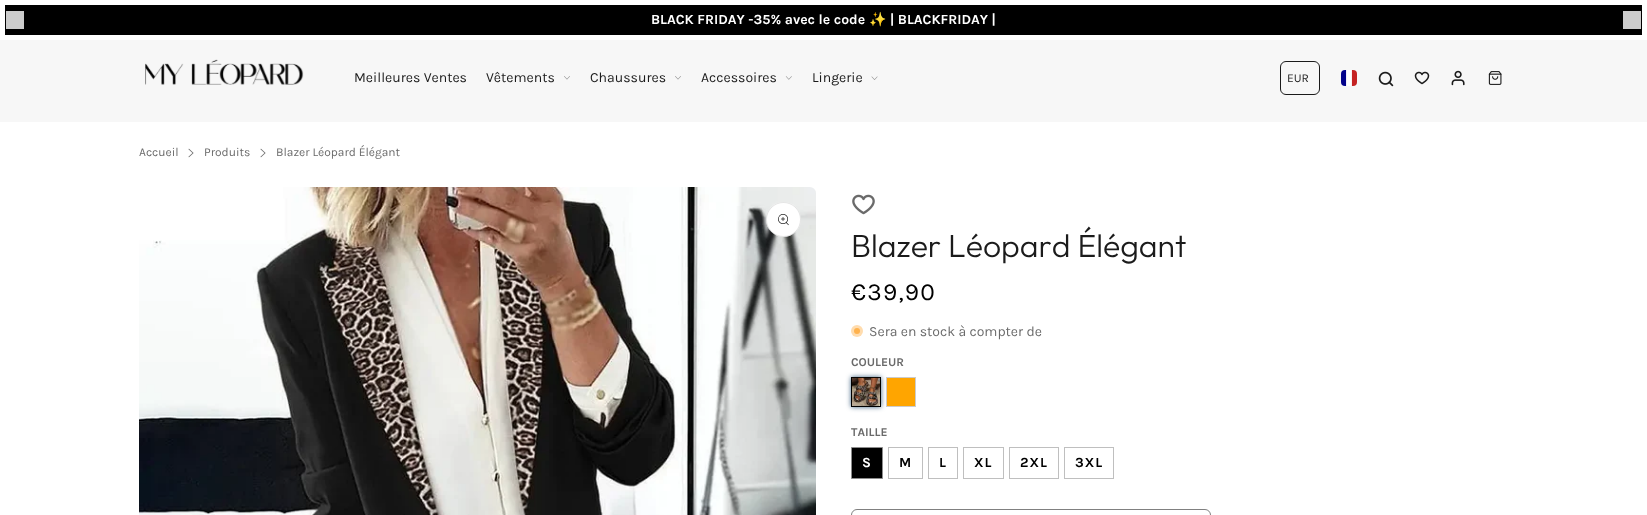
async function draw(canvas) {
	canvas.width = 1647;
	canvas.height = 515;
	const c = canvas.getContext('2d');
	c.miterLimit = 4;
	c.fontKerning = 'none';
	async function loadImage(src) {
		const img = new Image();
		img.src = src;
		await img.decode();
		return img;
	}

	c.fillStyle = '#fff';
	c.fillRect(0, 0, 1647, 515);
	c.fillStyle = '#000';
	c.fillRect(5, 5, 1637, 30);
	c.fillStyle = '#ccc';
	c.fillRect(6, 11, 18, 18);
	c.font = 'bold 14px Karla';
	c.fillStyle = '#fff';
	c.fillText('BLACK FRIDAY -35% avec le code', 651, 24);
	c.font = '14px Noto Color Emoji';
	c.fillText('✨', 869, 24);
	c.font = 'bold 14px Karla';
	c.fillText('| BLACKFRIDAY |', 890, 24);
	c.fillStyle = '#ccc';
	c.fillRect(1623, 11, 18, 18);
	c.fillStyle = '#f7f7f7';
	c.fillRect(0, 40, 1647, 82);
	c.drawImage(await loadImage('img1.png'), 145, 59, 159, 26);
	c.font = '14px Karla';
	c.fillStyle = '#1b1b1b';
	c.fillText('Meilleures Ventes', 354, 82);
	c.fillText('Vêtements', 486, 82);
	c.drawImage(await loadImage('img2.png'), 564, 76, 6, 4);
	c.fillText('Chaussures', 590, 82);
	c.drawImage(await loadImage('img3.png'), 675, 76, 6, 4);
	c.fillText('Accessoires', 701, 82);
	c.drawImage(await loadImage('img4.png'), 785, 76, 7, 4);
	c.fillText('Lingerie', 812, 82);
	c.drawImage(await loadImage('img5.png'), 871, 76, 7, 4);
	c.beginPath();
	c.roundRect(1280.5, 61.5, 39, 33, 5.5);
	c.strokeStyle = '#1b1b1b';
	c.stroke();
	c.font = '12px Karla';
	c.fillText('EUR', 1287, 82);
	c.drawImage(await loadImage('img6.png'), 1341, 70, 16, 16);
	c.drawImage(await loadImage('img7.png'), 1378, 71, 16, 16);
	c.drawImage(await loadImage('img8.png'), 1414, 71, 16, 14);
	c.drawImage(await loadImage('img9.png'), 1451, 70, 14, 16);
	c.drawImage(await loadImage('img10.png'), 1488, 71, 14, 14);
	c.fillStyle = '#6a6a6a';
	c.fillText('Accueil', 139, 156);
	c.drawImage(await loadImage('img11.png'), 188, 148, 6, 10);
	c.fillText('Produits', 204, 156);
	c.drawImage(await loadImage('img11.png'), 260, 148, 6, 10);
	c.fillText('Blazer Léopard Élégant', 276, 156);
	c.drawImage(await loadImage('img12.png'), 139, 187, 677, 328);
	c.fillStyle = '#fff';
	c.beginPath();
	c.arc(783.5, 219.5, 17.5, 0, 2 * Math.PI);
	c.fill();
	c.beginPath();
	c.arc(783.5, 219.5, 17, 0, 2 * Math.PI);
	c.strokeStyle = '#0000001a';
	c.stroke();
	c.drawImage(await loadImage('img13.png'), 778, 214, 11, 12);
	c.drawImage(await loadImage('img14.png'), 852, 194, 23, 21);
	c.font = '300 32px Outfit';
	c.fillStyle = '#1b1b1b';
	c.fillText('Blazer Léopard Élégant', 851, 257);
	c.letterSpacing = '1.25px';
	c.font = '24.5px Karla';
	c.fillStyle = '#000';
	c.fillText('€39,90', 851, 300);
	c.fillStyle = '#ffdcae';
	c.beginPath();
	c.arc(857, 331, 6, 0, 2 * Math.PI);
	c.fill();
	c.letterSpacing = '0px';
	c.font = '14px Karla';
	c.fillStyle = '#6a6a6a';
	c.fillText('Sera en stock à compter de', 869, 336);
	c.fillStyle = '#ffb24d';
	c.beginPath();
	c.arc(857, 331, 3, 0, 2 * Math.PI);
	c.fill();
	c.font = 'bold 12px Karla';
	c.fillStyle = '#6a6a6a';
	c.fillText('COULEUR', 851, 366);
	c.fillStyle = '#0c3a60cc';
	c.filter = 'blur(2.5px)';
	c.beginPath();
	c.rect(851, 377, 30, 30);
	c.fill();
	c.filter = 'none';
	c.strokeStyle = '#000';
	c.strokeRect(851.5, 377.5, 29, 29);
	c.drawImage(await loadImage('img15.png'), 852, 377, 28, 29);
	c.strokeStyle = '#00000033';
	c.strokeRect(886.5, 377.5, 29, 29);
	c.fillStyle = '#ffa500';
	c.fillRect(887, 378, 28, 28);
	c.fillStyle = '#6a6a6a';
	c.fillText('TAILLE', 851, 436);
	c.fillStyle = '#000';
	c.beginPath();
	c.rect(851.5, 447.5, 31, 31);
	c.fill();
	c.strokeStyle = '#8c8c8c';
	c.stroke();
	c.letterSpacing = '1px';
	c.font = 'bold 14px Karla';
	c.fillStyle = '#fff';
	c.fillText('S', 862, 467);
	c.strokeStyle = '#bfbfbf';
	c.strokeRect(888.5, 447.5, 34, 31);
	c.fillStyle = '#000';
	c.fillText('M', 899, 467);
	c.strokeRect(928.5, 447.5, 29, 31);
	c.fillText('L', 939, 467);
	c.strokeRect(963.5, 447.5, 40, 31);
	c.fillText('XL', 974, 467);
	c.strokeRect(1009.5, 447.5, 49, 31);
	c.fillText('2XL', 1020, 467);
	c.strokeRect(1064.5, 447.5, 49, 31);
	c.fillText('3XL', 1075, 467);
	c.beginPath();
	c.roundRect(851.5, 509.5, 359, 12, 5.5);
	c.strokeStyle = '#808080';
	c.stroke();
}

draw(document.querySelector('canvas'));
